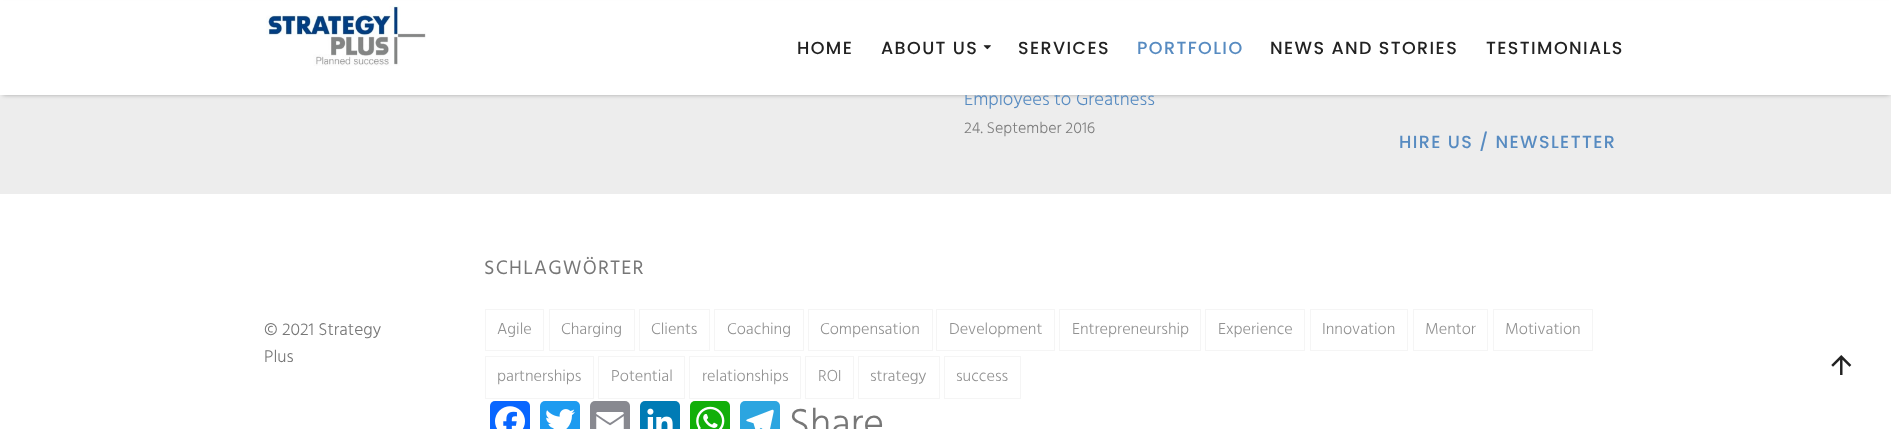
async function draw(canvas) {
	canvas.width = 1891;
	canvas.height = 429;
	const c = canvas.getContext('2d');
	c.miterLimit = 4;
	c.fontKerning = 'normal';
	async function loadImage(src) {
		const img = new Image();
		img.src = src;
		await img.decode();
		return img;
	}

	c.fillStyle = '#fff';
	c.fillRect(0, 0, 1891, 429);
	c.fillStyle = '#ededed';
	c.fillRect(0, 95, 1891, 99);
	c.fillStyle = '#0000004d';
	c.filter = 'blur(2px)';
	c.beginPath();
	c.rect(3, 5, 1886, 90);
	c.fill();
	c.filter = 'none';
	c.font = '300 18.75px Hind';
	c.fillStyle = '#578bc1';
	c.fillText('Employees to Greatness', 964, 105);
	c.fillStyle = '#fff';
	c.fillRect(0, 1, 1891, 94);
	c.drawImage(await loadImage('img1.png'), 266, 6, 160, 60);
	c.letterSpacing = '1.4px';
	c.font = '500 17.5px Poppins';
	c.fillStyle = '#222';
	c.fillText('HOME', 797, 54);
	c.fillText('ABOUT US', 881, 54);
	c.drawImage(await loadImage('img2.png'), 983, 45, 8, 5);
	c.fillText('SERVICES', 1018, 54);
	c.fillStyle = '#578bc1';
	c.fillText('PORTFOLIO', 1137, 54);
	c.fillStyle = '#222';
	c.fillText('NEWS AND STORIES', 1270, 54);
	c.fillText('TESTIMONIALS', 1486, 54);
	c.fillStyle = '#578bc1';
	c.fillText('HIRE US / NEWSLETTER', 1399, 148);
	c.letterSpacing = '0px';
	c.font = '300 16px Hind';
	c.fillStyle = '#7d7d7d';
	c.fillText('24. September 2016', 964, 133);
	c.font = '300 17.5px Hind';
	c.fillStyle = '#777';
	c.fillText('© 2021 Strategy', 264, 335);
	c.fillText('Plus', 264, 362);
	c.letterSpacing = '1.25px';
	c.font = '20px Hind';
	c.fillText('SCHLAGWÖRTER', 484, 274);
	c.strokeStyle = '#f5f5f5';
	c.strokeRect(485.5, 309.5, 58, 41);
	c.letterSpacing = '0px';
	c.font = '300 16.25px Hind';
	c.fillStyle = '#929292';
	c.fillText('Agile', 497, 334);
	c.strokeRect(549.5, 309.5, 85, 41);
	c.fillText('Charging', 561, 334);
	c.strokeRect(639.5, 309.5, 70, 41);
	c.fillText('Clients', 651, 334);
	c.strokeRect(714.5, 309.5, 89, 41);
	c.fillText('Coaching', 727, 334);
	c.strokeRect(808.5, 309.5, 124, 41);
	c.fillText('Compensation', 820, 334);
	c.strokeRect(936.5, 309.5, 118, 41);
	c.fillText('Development', 949, 334);
	c.strokeRect(1059.5, 309.5, 141, 41);
	c.fillText('Entrepreneurship', 1072, 334);
	c.strokeRect(1205.5, 309.5, 99, 41);
	c.fillText('Experience', 1218, 334);
	c.strokeRect(1310.5, 309.5, 97, 41);
	c.fillText('Innovation', 1322, 334);
	c.strokeRect(1413.5, 309.5, 74, 41);
	c.fillText('Mentor', 1425, 334);
	c.strokeRect(1493.5, 309.5, 99, 41);
	c.fillText('Motivation', 1505, 334);
	c.strokeRect(485.5, 356.5, 108, 42);
	c.fillText('partnerships', 497, 381);
	c.strokeRect(598.5, 356.5, 86, 42);
	c.fillText('Potential', 611, 381);
	c.strokeRect(689.5, 356.5, 111, 42);
	c.fillText('relationships', 702, 381);
	c.strokeRect(805.5, 356.5, 48, 42);
	c.fillText('ROI', 818, 381);
	c.strokeRect(858.5, 356.5, 81, 42);
	c.fillText('strategy', 870, 381);
	c.strokeRect(944.5, 356.5, 76, 42);
	c.fillText('success', 956, 381);
	c.fillStyle = '#0866ff';
	c.beginPath();
	c.roundRect(490, 401, 40, 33, 5);
	c.fill();
	c.drawImage(await loadImage('img3.png'), 495, 406, 30, 23);
	c.fillStyle = '#1d9bf0';
	c.beginPath();
	c.roundRect(540, 401, 40, 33, 5);
	c.fill();
	c.drawImage(await loadImage('img4.png'), 546, 409, 29, 20);
	c.fillStyle = '#888990';
	c.beginPath();
	c.roundRect(590, 401, 40, 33, 5);
	c.fill();
	c.drawImage(await loadImage('img5.png'), 596, 412, 28, 17);
	c.fillStyle = '#007bb5';
	c.beginPath();
	c.roundRect(640, 401, 40, 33, 5);
	c.fill();
	c.drawImage(await loadImage('img6.png'), 647, 408, 26, 21);
	c.fillStyle = '#12af0a';
	c.beginPath();
	c.roundRect(690, 401, 40, 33, 5);
	c.fill();
	c.drawImage(await loadImage('img7.png'), 696, 406, 29, 23);
	c.fillStyle = '#2ca5e0';
	c.beginPath();
	c.roundRect(740, 401, 40, 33, 5);
	c.fill();
	c.drawImage(await loadImage('img8.png'), 746, 409, 28, 20);
	c.font = '300 40px Hind';
	c.fillStyle = '#777';
	c.fillText('Share', 789, 436);
	c.drawImage(await loadImage('img9.png'), 1831, 355, 21, 20);
}

draw(document.querySelector('canvas'));
